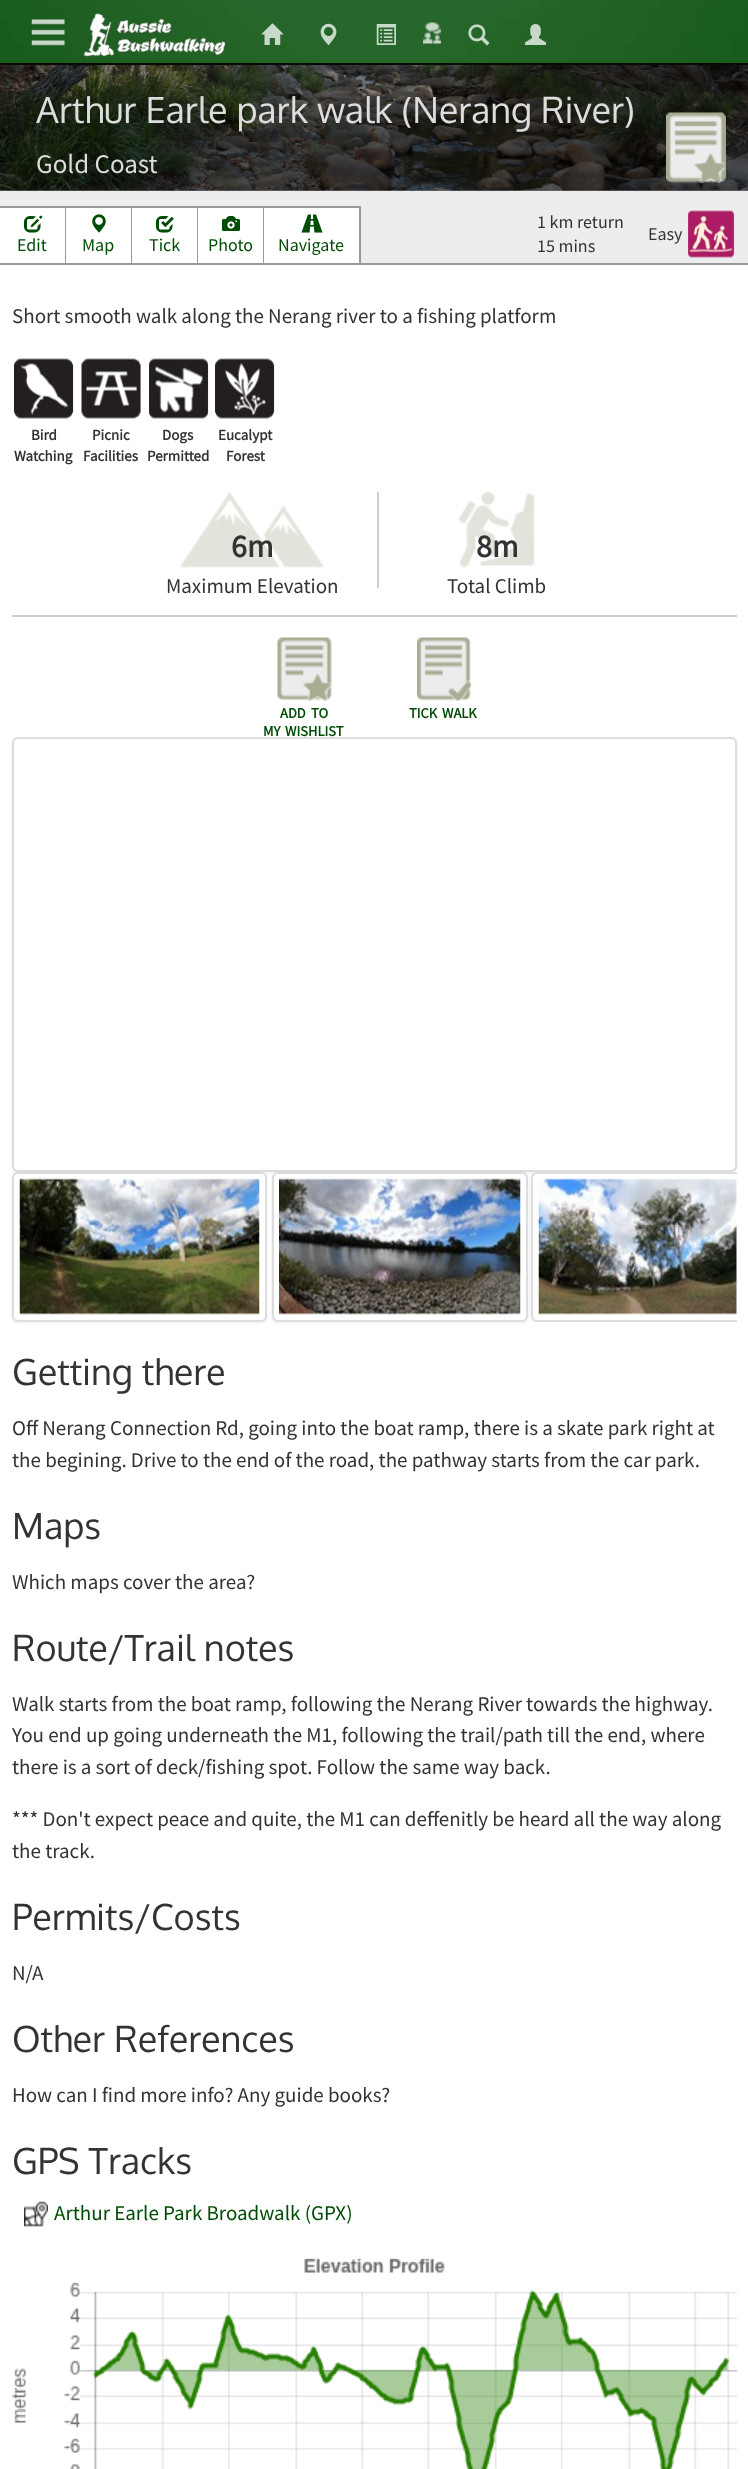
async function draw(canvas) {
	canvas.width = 748;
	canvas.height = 2469;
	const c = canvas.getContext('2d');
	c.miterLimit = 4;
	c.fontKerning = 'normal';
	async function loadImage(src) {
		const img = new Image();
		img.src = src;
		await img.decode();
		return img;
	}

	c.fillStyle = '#fff';
	c.fillRect(0, 0, 748, 2469);
	c.fillStyle = '#808080';
	c.fillRect(0, 189, 748, 2);
	c.fillStyle = '#080808';
	c.fillRect(0, 63, 748, 2);
	c.drawImage(await loadImage('img1.png'), 0, 0, 748, 63);
	c.drawImage(await loadImage('img2.png'), 31, 19, 34, 27);
	c.drawImage(await loadImage('img3.png'), 83, 13, 142, 44);
	c.drawImage(await loadImage('img4.png'), 261, 23, 23, 22);
	c.drawImage(await loadImage('img5.png'), 320, 23, 17, 23);
	c.drawImage(await loadImage('img6.png'), 376, 24, 20, 21);
	c.drawImage(await loadImage('img7.png'), 423, 22, 18, 22);
	c.drawImage(await loadImage('img8.png'), 468, 24, 22, 22);
	c.drawImage(await loadImage('img9.png'), 525, 24, 21, 21);
	c.drawImage(await loadImage('img10.png'), 0, 65, 748, 126);
	c.font = '36px Oxygen';
	c.fillStyle = '#ddd';
	c.fillText('Arthur Earle park walk (Nerang River)', 36, 123);
	c.font = '27px Source Sans Pro';
	c.fillText('Gold Coast', 36, 173);
	c.drawImage(await loadImage('img11.png'), 666, 112, 60, 71);
	for (const [x, y, w, h, color] of [
		[0, 191, 748, 72, '#eeeded'],
		[0, 263, 748, 2, '#999'],
		[0, 208, 65, 55, '#fff'],
		[0, 206, 360, 2, '#999'],
		[65, 206, 1, 57, '#999'],
	]) {
		c.fillStyle = color;
		c.fillRect(x, y, w, h);
	}
	c.drawImage(await loadImage('img12.png'), 24, 215, 19, 18);
	c.font = '18px Source Sans Pro';
	c.fillStyle = '#004c05';
	c.fillText('Edit', 17, 251);
	c.fillStyle = '#fff';
	c.fillRect(66, 208, 65, 55);
	c.fillStyle = '#999';
	c.fillRect(131, 206, 1, 57);
	c.drawImage(await loadImage('img13.png'), 92, 214, 14, 19);
	c.fillStyle = '#004c05';
	c.fillText('Map', 82, 251);
	c.fillStyle = '#fff';
	c.fillRect(132, 208, 65, 55);
	c.fillStyle = '#999';
	c.fillRect(197, 206, 1, 57);
	c.drawImage(await loadImage('img14.png'), 156, 216, 18, 17);
	c.fillStyle = '#004c05';
	c.fillText('Tick', 149, 251);
	c.fillStyle = '#fff';
	c.fillRect(198, 208, 65, 55);
	c.fillStyle = '#999';
	c.fillRect(263, 206, 1, 57);
	c.drawImage(await loadImage('img15.png'), 222, 216, 18, 15);
	c.fillStyle = '#004c05';
	c.fillText('Photo', 208, 251);
	c.fillStyle = '#fff';
	c.fillRect(264, 208, 95, 55);
	c.fillStyle = '#999';
	c.fillRect(359, 206, 2, 57);
	c.drawImage(await loadImage('img16.png'), 301, 214, 22, 19);
	c.fillStyle = '#004c05';
	c.fillText('Navigate', 278, 251);
	c.fillStyle = '#333';
	for (const [text, x, y] of [
		['1 km return', 537, 228],
		['15 mins', 537, 252],
		['Easy', 648, 240],
	]) {
		c.fillText(text, x, y);
	}
	c.drawImage(await loadImage('img17.png'), 688, 210, 47, 48);
	c.font = '21px Source Sans Pro';
	c.fillText('Short smooth walk along the Nerang river to a fishing platform', 12, 323);
	c.drawImage(await loadImage('img18.png'), 14, 358, 60, 61);
	c.font = 'bold 15px Source Sans Pro';
	c.fillText('Bird', 31, 440);
	c.fillText('Watching', 14, 461);
	c.drawImage(await loadImage('img19.png'), 81, 358, 60, 61);
	c.fillText('Picnic', 92, 440);
	c.fillText('Facilities', 83, 461);
	c.drawImage(await loadImage('img20.png'), 149, 358, 60, 61);
	c.fillText('Dogs', 162, 440);
	c.fillText('Permitted', 147, 461);
	c.drawImage(await loadImage('img21.png'), 215, 358, 60, 61);
	c.fillText('Eucalypt', 218, 440);
	c.fillText('Forest', 226, 461);
	c.drawImage(await loadImage('img22.png'), 180, 492, 144, 76);
	c.font = 'bold 32px Source Sans Pro';
	c.fillText('6m', 231, 557);
	c.font = '21px Source Sans Pro';
	c.fillText('Maximum Elevation', 166, 593);
	c.drawImage(await loadImage('img23.png'), 459, 491, 76, 77);
	c.fillStyle = '#ccc';
	c.fillRect(377, 492, 2, 96);
	c.font = 'bold 32px Source Sans Pro';
	c.fillStyle = '#333';
	c.fillText('8m', 476, 557);
	c.font = '21px Source Sans Pro';
	c.fillText('Total Climb', 447, 593);
	c.fillStyle = '#ccc';
	c.fillRect(12, 615, 725, 2);
	c.drawImage(await loadImage('img24.png'), 277, 637, 55, 64);
	c.font = 'bold 14.5px Source Sans Pro';
	c.fillStyle = '#004c05';
	for (const [text, x, y] of [
		['ADD', 280, 718],
		['TO', 311, 718],
		['MY', 263, 736],
		['WISHLIST', 285, 736],
	]) {
		c.fillText(text, x, y);
	}
	c.drawImage(await loadImage('img25.png'), 417, 637, 54, 64);
	c.fillText('TICK', 409, 718);
	c.fillText('WALK', 442, 718);
	c.fillStyle = '#00000012';
	c.filter = 'blur(1.5px)';
	c.beginPath();
	c.roundRect(12, 738, 725, 435, 6);
	c.fill();
	c.filter = 'none';
	c.fillStyle = '#fff';
	c.beginPath();
	c.roundRect(13, 738, 723, 433, 5);
	c.fill();
	c.strokeStyle = '#ddd';
	c.lineWidth = 2;
	c.stroke();
	c.fillStyle = '#00000012';
	c.filter = 'blur(1.5px)';
	c.beginPath();
	c.roundRect(12, 1173, 255, 150, 6);
	c.fill();
	c.filter = 'none';
	c.fillStyle = '#fff';
	c.beginPath();
	c.roundRect(13, 1173, 253, 148, 5);
	c.fill();
	c.stroke();
	c.drawImage(await loadImage('img26.png'), 19, 1178, 241, 137);
	c.fillStyle = '#00000012';
	c.filter = 'blur(1.5px)';
	c.beginPath();
	c.roundRect(272, 1173, 256, 150, 6);
	c.fill();
	c.filter = 'none';
	c.fillStyle = '#fff';
	c.beginPath();
	c.roundRect(273, 1173, 254, 148, 5);
	c.fill();
	c.stroke();
	c.drawImage(await loadImage('img27.png'), 279, 1178, 242, 137);
	c.save();
	c.beginPath();
	c.rect(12, 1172, 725, 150);
	c.clip();
	c.fillStyle = '#00000012';
	c.filter = 'blur(1.5px)';
	c.beginPath();
	c.roundRect(531, 1173, 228, 150, 6);
	c.fill();
	c.filter = 'none';
	c.restore();
	c.beginPath();
	c.roundRect(531, 1172, 206, 150, [6, 0, 0, 6]);
	c.fill();
	c.save();
	c.beginPath();
	c.rect(12, 1172, 725, 150);
	c.clip();
	c.beginPath();
	c.roundRect(532, 1173, 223, 148, 5);
	c.stroke();
	c.restore();
	c.drawImage(await loadImage('img28.png'), 538, 1178, 199, 137);
	c.font = '36px Oxygen';
	c.fillStyle = '#333';
	c.fillText('Getting there', 12, 1385);
	c.font = '21px Source Sans Pro';
	c.fillText('Off Nerang Connection Rd, going into the boat ramp, there is a skate park right at', 12, 1435);
	c.fillText('the begining. Drive to the end of the road, the pathway starts from the car park.', 12, 1467);
	c.font = '36px Oxygen';
	c.fillText('Maps', 12, 1539);
	c.font = '21px Source Sans Pro';
	c.fillText('Which maps cover the area?', 12, 1589);
	c.font = '36px Oxygen';
	c.fillText('Route/Trail notes', 12, 1661);
	c.font = '21px Source Sans Pro';
	for (const [text, x, y] of [
		['Walk starts from the boat ramp, following the Nerang River towards the highway.', 12, 1711],
		['You end up going underneath the M1, following the trail/path till the end, where', 12, 1742],
		['there is a sort of deck/fishing spot. Follow the same way back.', 12, 1774],
		['*** Don\'t expect peace and quite, the M1 can deffenitly be heard all the way along', 12, 1826],
		['the track.', 12, 1858],
	]) {
		c.fillText(text, x, y);
	}
	c.font = '36px Oxygen';
	c.fillText('Permits/Costs', 12, 1930);
	c.font = '21px Source Sans Pro';
	c.fillText('N/A', 12, 1980);
	c.font = '36px Oxygen';
	c.fillText('Other References', 12, 2052);
	c.font = '21px Source Sans Pro';
	c.fillText('How can I find more info? Any guide books?', 12, 2102);
	c.font = '36px Oxygen';
	c.fillText('GPS Tracks', 12, 2174);
	c.drawImage(await loadImage('img29.png'), 24, 2201, 24, 26);
	c.font = '21px Source Sans Pro';
	c.fillStyle = '#004c05';
	c.fillText('Arthur Earle Park Broadwalk (GPX)', 54, 2220);
	c.drawImage(await loadImage('img30.png'), 12, 2258, 725, 211);
}

draw(document.querySelector('canvas'));
